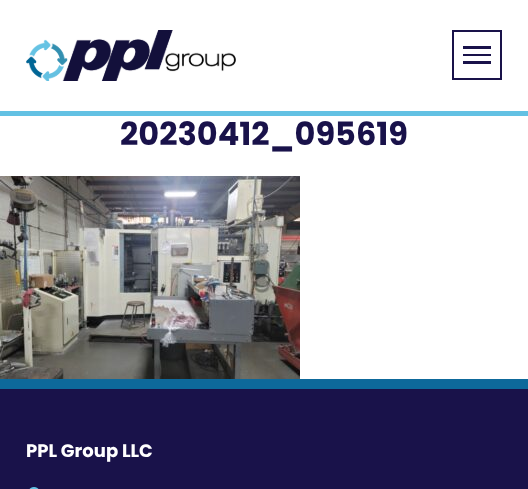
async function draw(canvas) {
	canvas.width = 528;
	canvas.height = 489;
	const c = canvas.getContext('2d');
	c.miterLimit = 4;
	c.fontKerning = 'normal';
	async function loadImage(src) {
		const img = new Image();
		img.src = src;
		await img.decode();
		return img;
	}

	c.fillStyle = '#fff';
	c.fillRect(0, 0, 528, 489);
	c.fillStyle = '#63c1e3';
	c.fillRect(0, 111, 528, 5);
	c.drawImage(await loadImage('img1.png'), 26, 30, 210, 51);
	c.strokeStyle = '#19124a';
	c.lineWidth = 2;
	c.strokeRect(453, 31, 48, 48);
	for (const [x, y, w, h, color] of [
		[463, 46, 28, 3, '#19124a'],
		[463, 54, 28, 2, '#19124a'],
		[463, 61, 28, 3, '#19124a'],
	]) {
		c.fillStyle = color;
		c.fillRect(x, y, w, h);
	}
	c.font = 'bold 32px Poppins';
	c.fillText('20230412_095619', 120, 145);
	c.drawImage(await loadImage('img2.png'), 0, 176, 300, 203);
	c.fillRect(0, 389, 528, 100);
	c.fillStyle = '#0d699b';
	c.fillRect(0, 379, 528, 10);
	c.font = 'bold 18px Poppins';
	c.fillStyle = '#fff';
	c.fillText('PPL Group LLC', 26, 457);
	c.drawImage(await loadImage('img3.png'), 29, 487, 10, 2);
}

draw(document.querySelector('canvas'));
